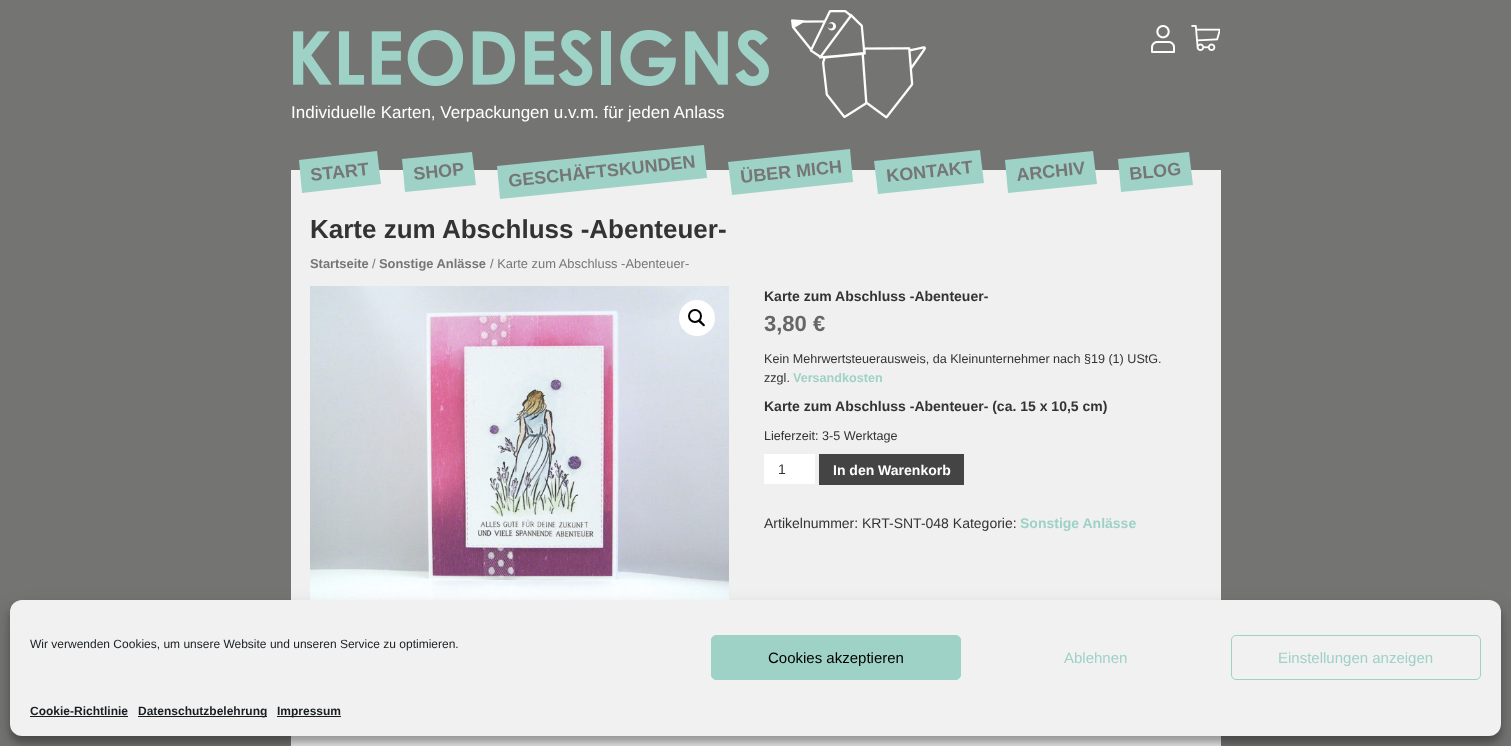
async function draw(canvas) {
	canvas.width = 1511;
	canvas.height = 746;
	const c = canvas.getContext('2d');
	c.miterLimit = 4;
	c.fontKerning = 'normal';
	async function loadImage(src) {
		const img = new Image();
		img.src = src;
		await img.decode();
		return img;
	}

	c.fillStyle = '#747473';
	c.fillRect(0, 0, 1511, 746);
	c.fillStyle = '#f0f0f0';
	c.fillRect(291, 170, 930, 576);
	c.drawImage(await loadImage('img1.png'), 1151, 25, 24, 28);
	c.drawImage(await loadImage('img2.png'), 1191, 25, 29, 26);
	c.drawImage(await loadImage('img3.png'), 293, 30, 476, 56);
	c.drawImage(await loadImage('img4.png'), 791, 10, 135, 109);
	c.font = '17px Liberation Sans';
	c.fillStyle = '#fff';
	c.fillText('Individuelle Karten, Verpackungen u.v.m. für jeden Anlass', 291, 118);
	c.fillStyle = '#9ed2c6';
	c.beginPath();
	c.moveTo(299, 160);
	c.lineTo(377, 151);
	c.lineTo(381, 184);
	c.lineTo(302, 193);
	c.closePath();
	c.fill();
	c.font = 'bold 18px Liberation Sans';
	c.fillStyle = '#767676';
	c.save();
	c.translate(311, 181);
	c.rotate(-6 * Math.PI / 180);
	c.fillText('START', 0, 0);
	c.restore();
	c.fillStyle = '#9ed2c6';
	c.beginPath();
	c.moveTo(402, 159);
	c.lineTo(472, 152);
	c.lineTo(476, 185);
	c.lineTo(405, 192);
	c.closePath();
	c.fill();
	c.fillStyle = '#767676';
	c.save();
	c.translate(414, 180);
	c.rotate(-6 * Math.PI / 180);
	c.fillText('SHOP', 0, 0);
	c.restore();
	c.fillStyle = '#9ed2c6';
	c.beginPath();
	c.moveTo(497, 166);
	c.lineTo(704, 145);
	c.lineTo(707, 178);
	c.lineTo(500, 199);
	c.closePath();
	c.fill();
	c.fillStyle = '#767676';
	c.save();
	c.translate(509, 187);
	c.rotate(-6 * Math.PI / 180);
	c.fillText('GESCHÄFTSKUNDEN', 0, 0);
	c.restore();
	c.fillStyle = '#9ed2c6';
	c.beginPath();
	c.moveTo(728, 162);
	c.lineTo(850, 149);
	c.lineTo(853, 182);
	c.lineTo(732, 195);
	c.closePath();
	c.fill();
	c.fillStyle = '#767676';
	c.save();
	c.translate(741, 183);
	c.rotate(-6 * Math.PI / 180);
	c.fillText('ÜBER MICH', 0, 0);
	c.restore();
	c.fillStyle = '#9ed2c6';
	c.beginPath();
	c.moveTo(874, 161);
	c.lineTo(980, 150);
	c.lineTo(984, 183);
	c.lineTo(878, 194);
	c.closePath();
	c.fill();
	c.fillStyle = '#767676';
	c.save();
	c.translate(887, 182);
	c.rotate(-6 * Math.PI / 180);
	c.fillText('KONTAKT', 0, 0);
	c.restore();
	c.fillStyle = '#9ed2c6';
	c.beginPath();
	c.moveTo(1005, 160);
	c.lineTo(1093, 151);
	c.lineTo(1097, 184);
	c.lineTo(1008, 193);
	c.closePath();
	c.fill();
	c.fillStyle = '#767676';
	c.save();
	c.translate(1017, 181);
	c.rotate(-6 * Math.PI / 180);
	c.fillText('ARCHIV', 0, 0);
	c.restore();
	c.fillStyle = '#9ed2c6';
	c.beginPath();
	c.moveTo(1118, 159);
	c.lineTo(1189, 152);
	c.lineTo(1193, 185);
	c.lineTo(1121, 192);
	c.closePath();
	c.fill();
	c.fillStyle = '#767676';
	c.save();
	c.translate(1130, 180);
	c.rotate(-6 * Math.PI / 180);
	c.fillText('BLOG', 0, 0);
	c.restore();
	c.font = 'bold 26px Liberation Sans';
	c.fillStyle = '#333';
	c.fillText('Karte zum Abschluss -Abenteuer-', 310, 238);
	c.font = 'bold 12.9px Liberation Sans';
	c.fillStyle = '#767676';
	c.fillText('Startseite', 310, 268);
	c.font = '12.9px Liberation Sans';
	c.fillText('/', 372, 268);
	c.font = 'bold 12.9px Liberation Sans';
	c.fillText('Sonstige Anlässe', 379, 268);
	c.font = '12.9px Liberation Sans';
	c.fillText('/ Karte zum Abschluss -Abenteuer-', 490, 268);
	c.drawImage(await loadImage('img5.png'), 310, 286, 419, 314);
	c.fillStyle = '#fff';
	c.beginPath();
	c.arc(697, 318, 18, 0, 2 * Math.PI);
	c.fill();
	c.beginPath();
	c.arc(695, 316, 6, 0, 2 * Math.PI);
	c.strokeStyle = '#000';
	c.lineWidth = 2;
	c.stroke();
	c.fillStyle = '#000';
	c.beginPath();
	c.moveTo(699, 320.5);
	c.bezierCurveTo(700, 319, 702, 322, 702.5, 322.5);
	c.bezierCurveTo(703, 323, 706, 325, 704.5, 326);
	c.bezierCurveTo(703.5, 327, 701.5, 324.5, 701, 324);
	c.bezierCurveTo(700.5, 323.5, 697.5, 321.5, 699, 320.5);
	c.closePath();
	c.fill();
	c.font = 'bold 14px Liberation Sans';
	c.fillStyle = '#333';
	c.fillText('Karte zum Abschluss -Abenteuer-', 764, 301);
	c.font = 'bold 22px Liberation Sans';
	c.fillStyle = '#666';
	c.fillText('3,80 €', 764, 331);
	c.font = '12.6px Liberation Sans';
	c.fillStyle = '#333';
	c.fillText('Kein Mehrwertsteuerausweis, da Kleinunternehmer nach §19 (1) UStG.', 764, 363);
	c.fillText('zzgl.', 764, 382);
	c.font = 'bold 12.6px Liberation Sans';
	c.fillStyle = '#9ed2c6';
	c.fillText('Versandkosten', 793, 382);
	c.font = 'bold 14px Liberation Sans';
	c.fillStyle = '#333';
	c.fillText('Karte zum Abschluss -Abenteuer- (ca. 15 x 10,5 cm)', 764, 411);
	c.font = '12.6px Liberation Sans';
	c.fillText('Lieferzeit: 3-5 Werktage', 764, 440);
	c.fillStyle = '#fff';
	c.fillRect(764, 454, 51, 30);
	c.font = '14px Liberation Sans';
	c.fillStyle = '#333';
	c.fillText('1', 778, 474);
	c.fillStyle = '#444';
	c.fillRect(819, 454, 145, 31);
	c.font = 'bold 14px Liberation Sans';
	c.fillStyle = '#fff';
	c.fillText('In den Warenkorb', 833, 475);
	c.font = '14px Liberation Sans';
	c.fillStyle = '#333';
	c.fillText('Artikelnummer: KRT-SNT-048 Kategorie:', 764, 528);
	c.font = 'bold 14px Liberation Sans';
	c.fillStyle = '#9ed2c6';
	c.fillText('Sonstige Anlässe', 1020, 528);
	c.fillStyle = '#0000003b';
	c.filter = 'blur(3px)';
	c.beginPath();
	c.roundRect(10, 606, 1491, 136, 12);
	c.fill();
	c.filter = 'none';
	c.fillStyle = '#00000030';
	c.filter = 'blur(10px)';
	c.beginPath();
	c.roundRect(10, 610, 1491, 136, 12);
	c.fill();
	c.filter = 'none';
	c.fillStyle = '#f1f1f1';
	c.beginPath();
	c.roundRect(10, 600, 1491, 136, 12);
	c.fill();
	c.font = '12px Liberation Sans';
	c.fillStyle = '#191e23';
	c.fillText('Wir verwenden Cookies, um unsere Website und unseren Service zu optimieren.', 30, 648);
	c.fillStyle = '#9ed2c6';
	c.beginPath();
	c.roundRect(711.5, 635.5, 249, 44, 4.5);
	c.fill();
	c.strokeStyle = '#9ed2c6';
	c.lineWidth = 1;
	c.stroke();
	c.font = '15px Liberation Sans';
	c.fillStyle = '#000';
	c.fillText('Cookies akzeptieren', 768, 663);
	c.fillStyle = '#9ed2c6';
	c.fillText('Ablehnen', 1064, 663);
	c.beginPath();
	c.roundRect(1231.5, 635.5, 249, 44, 4.5);
	c.stroke();
	c.fillText('Einstellungen anzeigen', 1278, 663);
	c.font = 'bold 12px Liberation Sans';
	c.fillStyle = '#191e23';
	c.fillText('Cookie-Richtlinie', 30, 715);
	c.fillRect(30, 716, 98, 1);
	c.fillRect(138, 716, 129, 1);
	c.fillText('Datenschutzbelehrung', 138, 715);
	c.fillRect(277, 716, 64, 1);
	c.fillText('Impressum', 277, 715);
}

draw(document.querySelector('canvas'));
